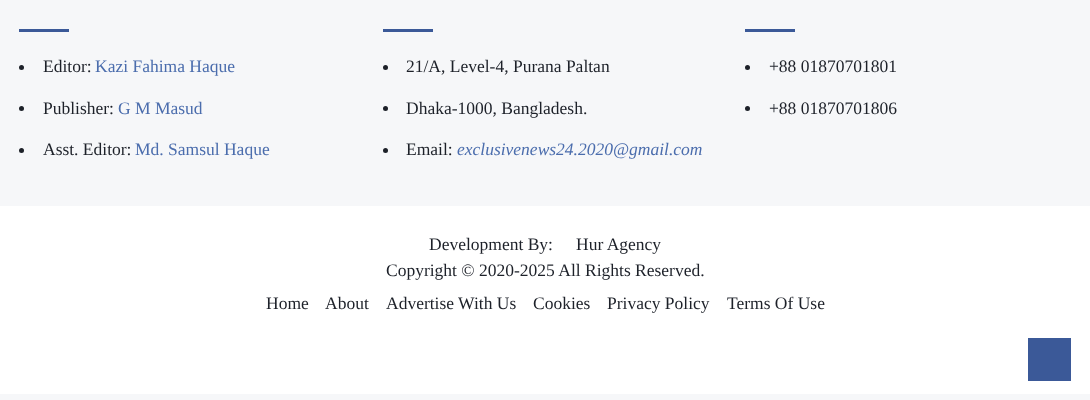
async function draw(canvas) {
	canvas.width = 1090;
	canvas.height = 400;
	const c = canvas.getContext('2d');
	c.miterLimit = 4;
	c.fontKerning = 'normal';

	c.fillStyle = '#f6f7f9';
	c.fillRect(0, 0, 1090, 400);
	c.fillStyle = '#3b5998';
	c.fillRect(19, 29, 50, 3);
	c.fillStyle = '#1d2129';
	c.beginPath();
	c.arc(21.5, 67.5, 2.5, 0, 2 * Math.PI);
	c.fill();
	c.font = '17.5px Liberation Serif';
	c.fillText('Editor:', 43, 72);
	c.fillStyle = '#4b6dad';
	c.fillText('Kazi Fahima Haque', 95, 72);
	c.fillStyle = '#1d2129';
	c.beginPath();
	c.arc(21.5, 108.5, 2.5, 0, 2 * Math.PI);
	c.fill();
	c.fillText('Publisher:', 43, 114);
	c.fillStyle = '#4b6dad';
	c.fillText('G M Masud', 118, 114);
	c.fillStyle = '#1d2129';
	c.beginPath();
	c.arc(21.5, 150.5, 2.5, 0, 2 * Math.PI);
	c.fill();
	c.fillText('Asst. Editor:', 43, 155);
	c.fillStyle = '#4b6dad';
	c.fillText('Md. Samsul Haque', 135, 155);
	c.fillStyle = '#3b5998';
	c.fillRect(383, 29, 50, 3);
	c.fillStyle = '#1d2129';
	c.beginPath();
	c.arc(385.5, 67.5, 2.5, 0, 2 * Math.PI);
	c.fill();
	c.fillText('21/A, Level-4, Purana Paltan', 406, 72);
	c.beginPath();
	c.arc(385.5, 108.5, 2.5, 0, 2 * Math.PI);
	c.fill();
	c.fillText('Dhaka-1000, Bangladesh.', 406, 114);
	c.beginPath();
	c.arc(385.5, 150.5, 2.5, 0, 2 * Math.PI);
	c.fill();
	c.fillText('Email:', 406, 155);
	c.font = 'italic 17.5px Liberation Serif';
	c.fillStyle = '#4b6dad';
	c.fillText('exclusivenews24.2020@gmail.com', 457, 155);
	c.fillStyle = '#3b5998';
	c.fillRect(745, 29, 50, 3);
	c.fillStyle = '#1d2129';
	c.beginPath();
	c.arc(747.5, 67.5, 2.5, 0, 2 * Math.PI);
	c.fill();
	c.font = '17.5px Liberation Serif';
	c.fillText('+88 01870701801', 769, 72);
	c.beginPath();
	c.arc(747.5, 108.5, 2.5, 0, 2 * Math.PI);
	c.fill();
	c.fillText('+88 01870701806', 769, 114);
	c.fillStyle = '#fff';
	c.fillRect(0, 206, 1090, 188);
	c.fillStyle = '#1d2129';
	for (const [text, x, y] of [
		['Development By:', 429, 250],
		['Hur Agency', 576, 250],
		['Copyright © 2020-2025 All Rights Reserved.', 386, 276],
		['Home', 266, 309],
		['About', 325, 309],
		['Advertise With Us', 386, 309],
		['Cookies', 533, 309],
		['Privacy Policy', 607, 309],
		['Terms Of Use', 727, 309],
	]) {
		c.fillText(text, x, y);
	}
	c.fillStyle = '#3b5998';
	c.fillRect(1028, 338, 43, 43);
}

draw(document.querySelector('canvas'));
